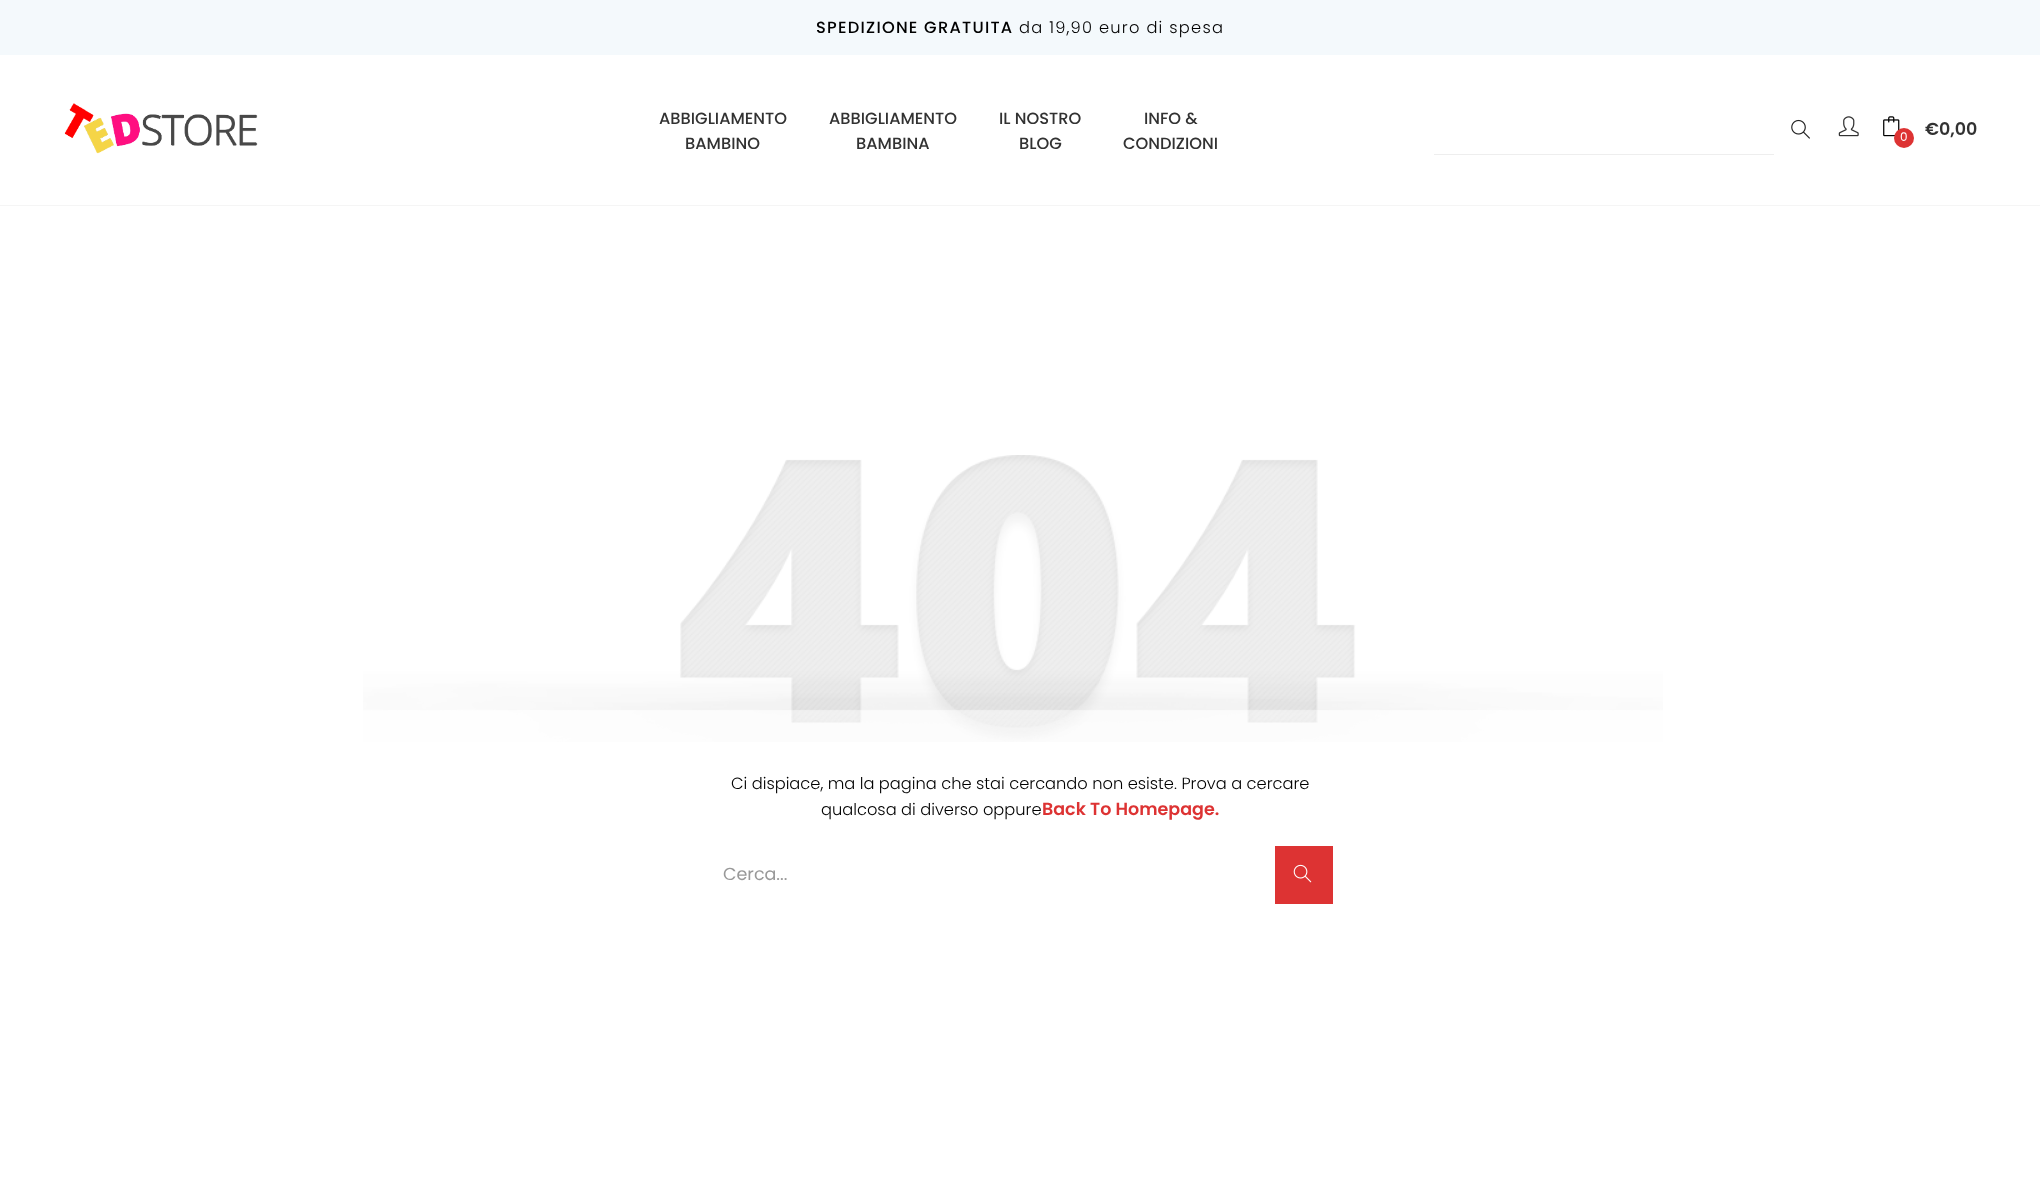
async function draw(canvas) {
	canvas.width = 2040;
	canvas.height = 1203;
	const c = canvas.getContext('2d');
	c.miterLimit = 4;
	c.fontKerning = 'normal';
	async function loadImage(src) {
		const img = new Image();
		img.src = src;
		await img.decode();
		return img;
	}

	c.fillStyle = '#fff';
	c.fillRect(0, 0, 2040, 1203);
	c.fillStyle = '#f4f9fc';
	c.fillRect(0, 0, 2040, 55);
	c.letterSpacing = '1.25px';
	c.font = '500 16.25px Poppins';
	c.fillStyle = '#000';
	c.fillText('SPEDIZIONE GRATUITA', 816, 33);
	c.font = '300 16.25px Poppins';
	c.fillText('da 19,90 euro di spesa', 1019, 33);
	c.drawImage(await loadImage('img1.png'), 64, 103, 194, 51);
	c.letterSpacing = '0px';
	c.font = '500 16.25px Poppins';
	c.fillStyle = '#323232';
	for (const [text, x, y] of [
		['ABBIGLIAMENTO', 659, 124],
		['BAMBINO', 685, 149],
		['ABBIGLIAMENTO', 829, 124],
		['BAMBINA', 856, 149],
		['IL NOSTRO', 999, 124],
		['BLOG', 1019, 149],
		['INFO &', 1144, 124],
		['CONDIZIONI', 1123, 149],
	]) {
		c.fillText(text, x, y);
	}
	c.drawImage(await loadImage('img2.png'), 1791, 119, 19, 20);
	c.fillStyle = '#eee';
	c.fillRect(1434, 154, 340, 1);
	c.drawImage(await loadImage('img3.png'), 1838, 116, 21, 21);
	c.drawImage(await loadImage('img4.png'), 1883, 116, 17, 21);
	c.fillStyle = '#d33';
	c.beginPath();
	c.arc(1904, 138, 10, 0, 2 * Math.PI);
	c.fill();
	c.font = '12px Poppins';
	c.fillStyle = '#fff';
	c.fillText('0', 1900, 141);
	c.font = '600 17.5px Poppins';
	c.fillStyle = '#323232';
	c.fillText('€0,00', 1925, 135);
	c.fillStyle = '#f5f5f5';
	c.fillRect(0, 205, 2040, 1);
	c.drawImage(await loadImage('img5.png'), 363, 455, 1300, 287);
	c.font = '300 16.25px Poppins';
	c.fillStyle = '#000';
	c.fillText('Ci dispiace, ma la pagina che stai cercando non esiste. Prova a cercare', 731, 789);
	c.fillText('qualcosa di diverso oppure', 821, 815);
	c.font = '600 17.5px Poppins';
	c.fillStyle = '#d33';
	c.fillText('Back To Homepage.', 1042, 815);
	c.font = '17.5px Poppins';
	c.fillStyle = '#999';
	c.fillText('Cerca...', 723, 880);
	c.fillStyle = '#d33';
	c.fillRect(1275, 846, 58, 58);
	c.drawImage(await loadImage('img6.png'), 1293, 864, 19, 19);
}

draw(document.querySelector('canvas'));
